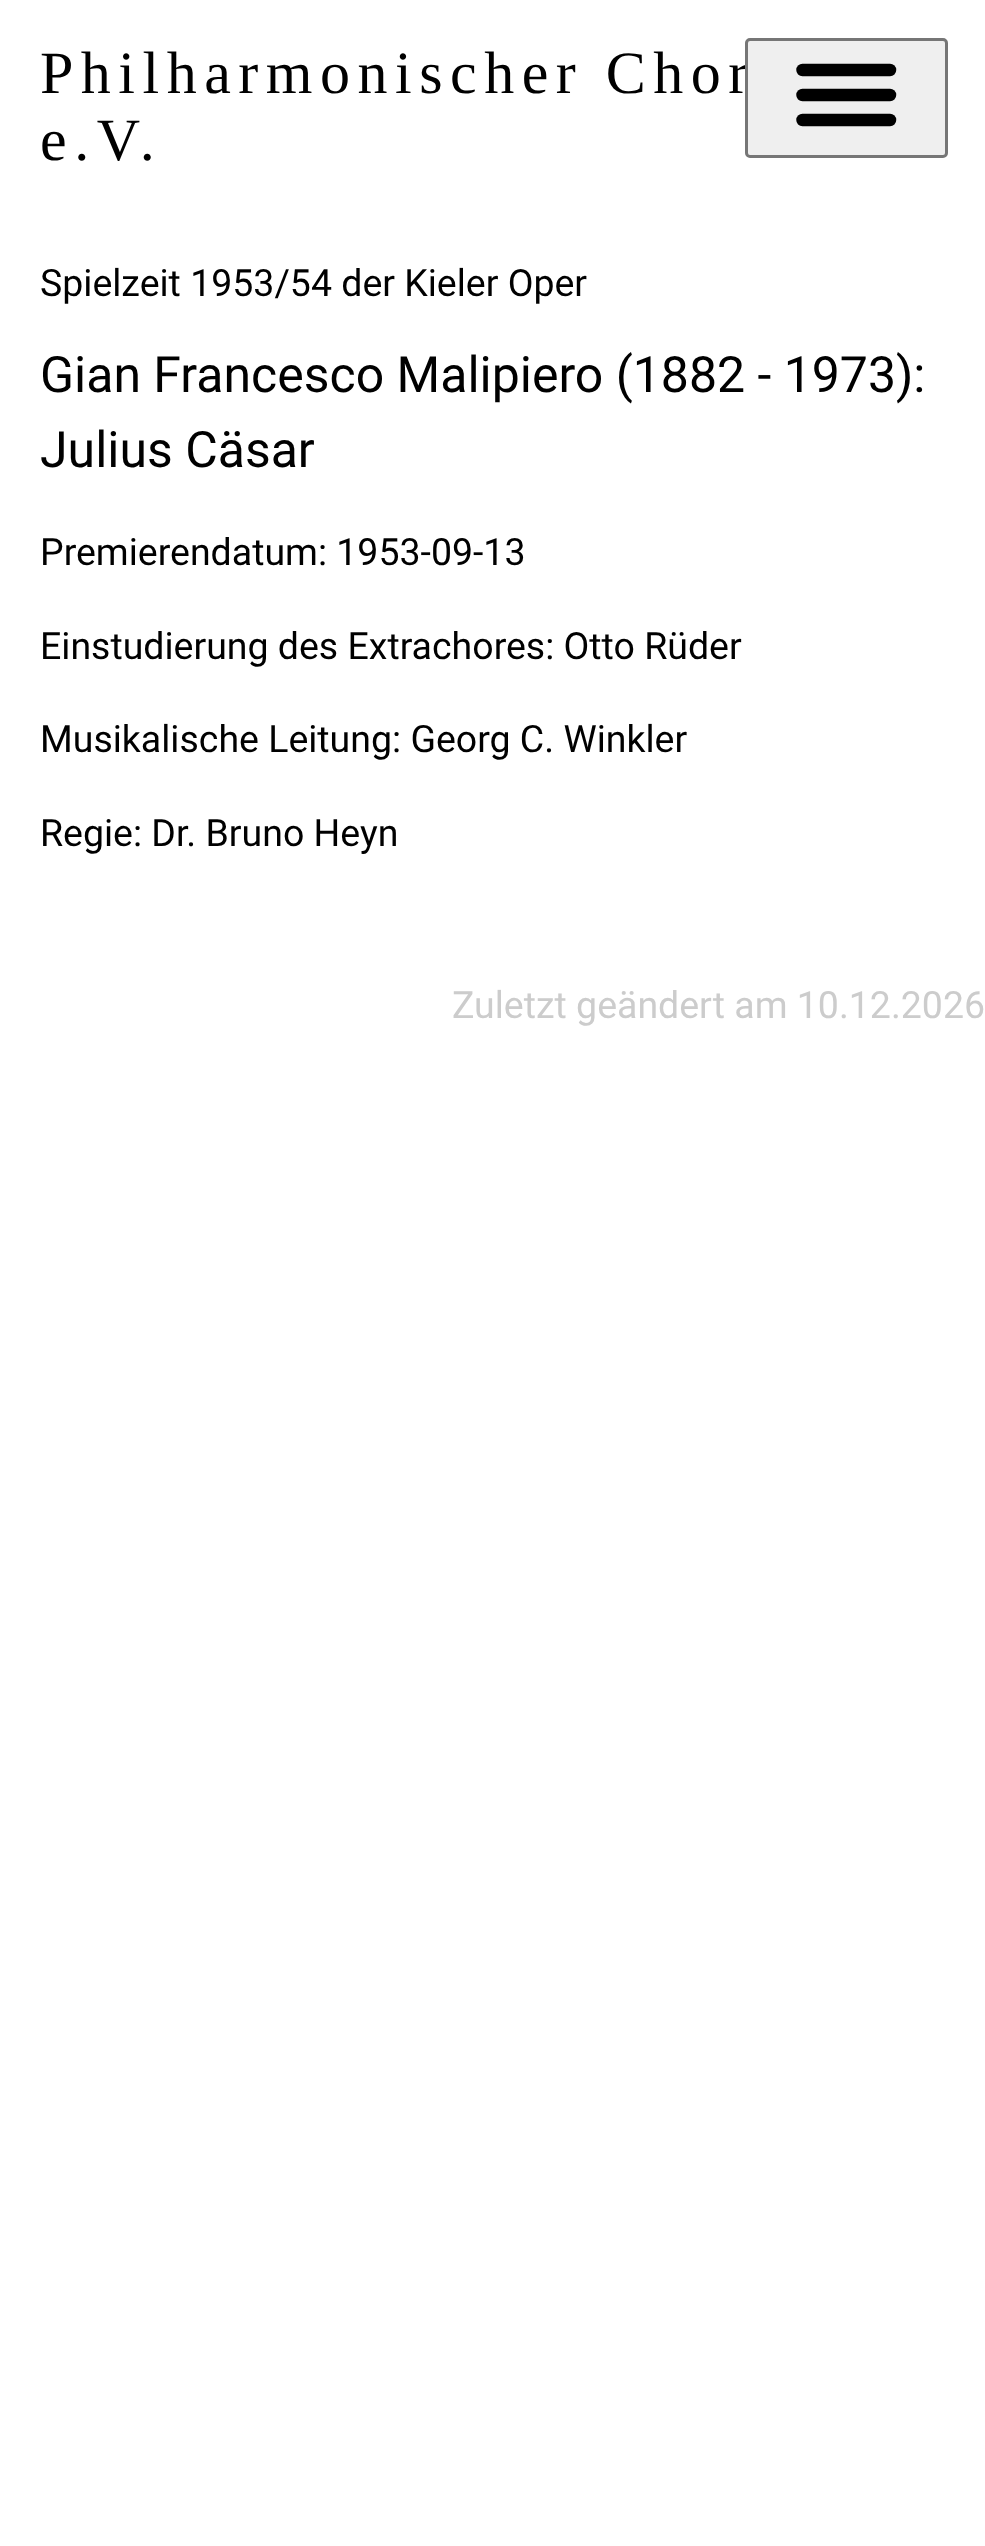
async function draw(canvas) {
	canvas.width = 985;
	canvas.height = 2546;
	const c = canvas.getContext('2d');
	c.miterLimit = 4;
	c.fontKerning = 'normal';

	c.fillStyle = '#fff';
	c.fillRect(0, 0, 985, 2546);
	c.letterSpacing = '7.5px';
	c.font = '60px Liberation Serif';
	c.fillStyle = '#000';
	c.fillText('Philharmonischer Chor', 40, 93);
	c.fillStyle = '#efefef';
	c.beginPath();
	c.roundRect(746.5, 39.5, 200, 117, 3.5);
	c.fill();
	c.strokeStyle = '#767676';
	c.lineWidth = 3;
	c.stroke();
	c.beginPath();
	c.moveTo(802.5, 70);
	c.lineTo(890, 70);
	c.strokeStyle = '#000';
	c.lineWidth = 12.5;
	c.lineCap = 'round';
	c.stroke();
	c.beginPath();
	c.moveTo(802.5, 95);
	c.lineTo(890, 95);
	c.stroke();
	c.beginPath();
	c.moveTo(802.5, 120);
	c.lineTo(890, 120);
	c.stroke();
	c.fillStyle = '#000';
	c.fillText('e.V.', 40, 160);
	c.letterSpacing = '0px';
	c.font = '37.5px Roboto';
	c.fillText('Spielzeit 1953/54 der Kieler Oper', 40, 296);
	c.font = '50px Roboto';
	c.fillText('Gian Francesco Malipiero (1882 - 1973):', 40, 392);
	c.fillText('Julius Cäsar', 40, 467);
	c.font = '37.5px Roboto';
	for (const [text, x, y] of [
		['Premierendatum: 1953-09-13', 40, 565],
		['Einstudierung des Extrachores: Otto Rüder', 40, 659],
		['Musikalische Leitung: Georg C. Winkler', 40, 752],
		['Regie: Dr. Bruno Heyn', 40, 846],
	]) {
		c.fillText(text, x, y);
	}
	c.fillStyle = '#ccc';
	c.fillText('Zuletzt geändert am 10.12.2026', 452, 1018);
}

draw(document.querySelector('canvas'));
